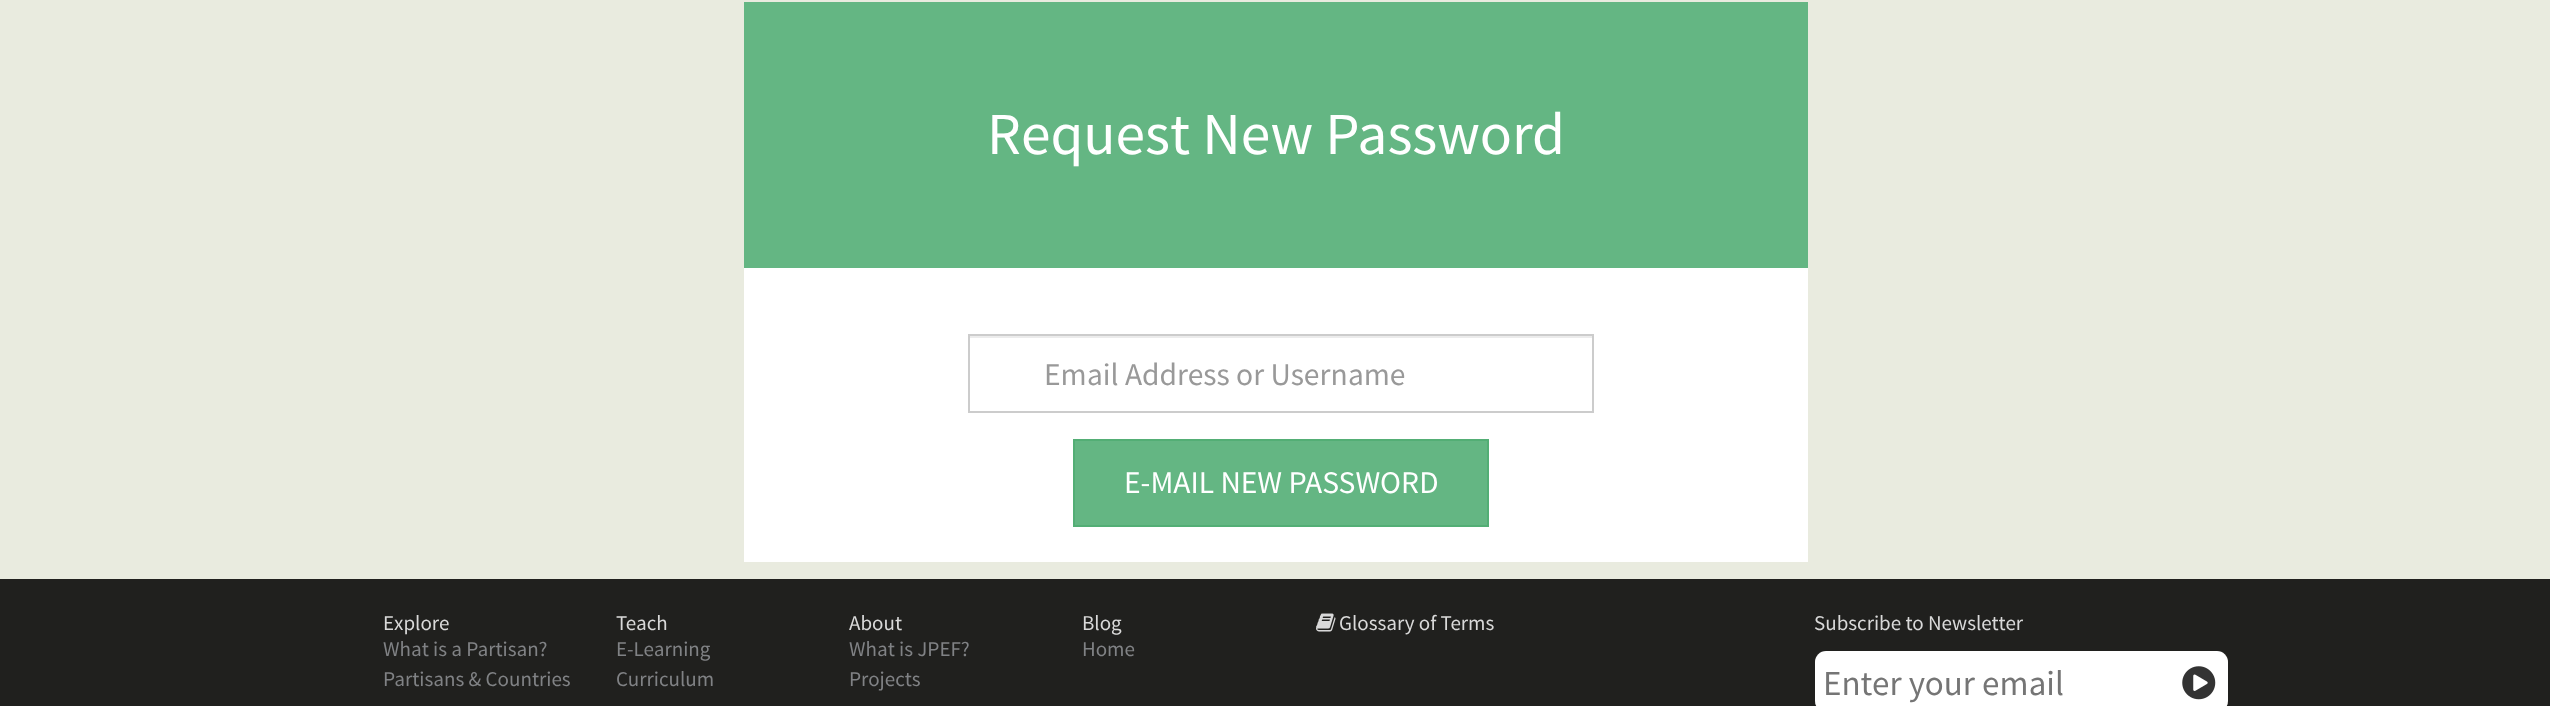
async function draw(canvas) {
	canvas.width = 2550;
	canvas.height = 706;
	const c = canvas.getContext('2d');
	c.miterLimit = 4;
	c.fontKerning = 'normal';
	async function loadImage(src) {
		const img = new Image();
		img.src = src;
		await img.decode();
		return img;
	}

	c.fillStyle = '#e9ebdf';
	c.fillRect(0, 0, 2550, 706);
	c.fillStyle = '#64b683';
	c.fillRect(744, 2, 1064, 266);
	c.font = '59.5px Source Sans Pro';
	c.fillStyle = '#fff';
	c.fillText('Request New Password', 987, 154);
	c.fillRect(744, 268, 1064, 294);
	c.fillStyle = '#ececec';
	c.fillRect(970, 336, 623, 2);
	c.strokeStyle = '#ccc';
	c.lineWidth = 2;
	c.strokeRect(969, 335, 624, 77);
	c.font = '31.5px Source Sans Pro';
	c.fillStyle = '#999';
	c.fillText('Email Address or Username', 1044, 385);
	c.fillStyle = '#64b683';
	c.beginPath();
	c.rect(1074, 440, 414, 86);
	c.fill();
	c.strokeStyle = '#53ae75';
	c.stroke();
	c.fillStyle = '#fff';
	c.fillText('E-MAIL NEW PASSWORD', 1124, 493);
	c.fillStyle = '#20201e';
	c.fillRect(0, 579, 2550, 127);
	c.font = '21px Source Sans Pro';
	c.fillStyle = '#d9d9d9';
	c.fillText('Explore', 383, 630);
	c.fillStyle = '#808285';
	c.fillText('What is a Partisan?', 383, 656);
	c.fillText('Partisans & Countries', 383, 686);
	c.fillStyle = '#d9d9d9';
	c.fillText('Teach', 616, 630);
	c.fillStyle = '#808285';
	c.fillText('E-Learning', 616, 656);
	c.fillText('Curriculum', 616, 686);
	c.fillStyle = '#d9d9d9';
	c.fillText('About', 849, 630);
	c.fillStyle = '#808285';
	c.fillText('What is JPEF?', 849, 656);
	c.fillText('Projects', 849, 686);
	c.fillStyle = '#d9d9d9';
	c.fillText('Blog', 1082, 630);
	c.fillStyle = '#808285';
	c.fillText('Home', 1082, 656);
	c.drawImage(await loadImage('img1.png'), 1316, 613, 20, 19);
	c.fillStyle = '#d9d9d9';
	c.fillText('Glossary of Terms', 1339, 630);
	c.fillText('Subscribe to Newsletter', 1814, 630);
	c.fillStyle = '#fff';
	c.beginPath();
	c.roundRect(1815, 651, 413, 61, 11);
	c.fill();
	c.font = '35px Source Sans Pro';
	c.fillStyle = '#757575';
	c.fillText('Enter your email', 1823, 695);
	c.drawImage(await loadImage('img2.png'), 2182, 666, 34, 34);
}

draw(document.querySelector('canvas'));
